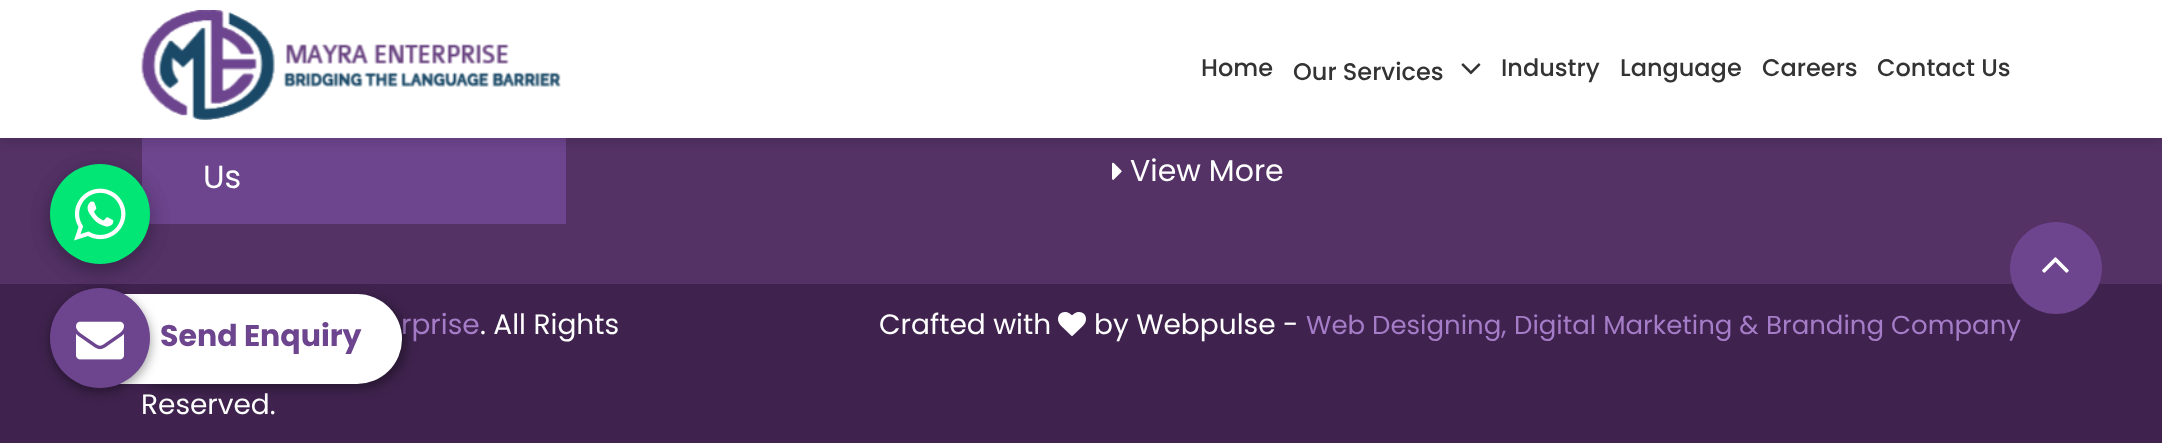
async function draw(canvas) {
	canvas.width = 2162;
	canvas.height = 443;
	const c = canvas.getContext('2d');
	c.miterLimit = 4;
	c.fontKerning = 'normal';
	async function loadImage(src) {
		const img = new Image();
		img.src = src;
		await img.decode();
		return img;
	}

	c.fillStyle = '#3f234e';
	c.fillRect(0, 0, 2162, 443);
	c.fillStyle = '#543266';
	c.fillRect(0, 138, 2162, 146);
	c.fillStyle = '#6d458e';
	c.fillRect(142, 138, 424, 86);
	c.fillStyle = '#00000029';
	c.filter = 'blur(10px)';
	c.beginPath();
	c.roundRect(50, 170, 100, 100, 50);
	c.fill();
	c.filter = 'none';
	c.filter = 'blur(10px)';
	c.beginPath();
	c.roundRect(50, 170, 100, 100, 50);
	c.fill();
	c.filter = 'none';
	c.fillStyle = '#01e675';
	c.beginPath();
	c.arc(100, 214, 50, 0, 2 * Math.PI);
	c.fill();
	c.drawImage(await loadImage('img1.png'), 74, 188, 52, 53);
	c.fillStyle = '#0000001a';
	c.filter = 'blur(5px)';
	c.beginPath();
	c.rect(0, 6, 2162, 138);
	c.fill();
	c.filter = 'none';
	c.fillStyle = '#fff';
	c.fillRect(0, 0, 2162, 138);
	c.drawImage(await loadImage('img2.png'), 141, 10, 420, 110);
	c.font = '500 24px Poppins';
	c.fillStyle = '#333';
	c.fillText('Home', 1201, 76);
	c.fillText('Our Services', 1293, 80);
	c.drawImage(await loadImage('img3.png'), 1461, 63, 20, 12);
	for (const [text, x, y] of [
		['Industry', 1501, 76],
		['Language', 1620, 76],
		['Careers', 1762, 76],
		['Contact Us', 1877, 76],
	]) {
		c.fillText(text, x, y);
	}
	c.font = '32px Poppins';
	c.fillStyle = '#fff';
	c.fillText('Us', 203, 188);
	c.drawImage(await loadImage('img4.png'), 1112, 162, 10, 18);
	c.font = '30px Poppins';
	c.fillText('View More', 1130, 181);
	c.fillStyle = '#6d458e';
	c.beginPath();
	c.arc(2056, 268, 46, 0, 2 * Math.PI);
	c.fill();
	c.drawImage(await loadImage('img5.png'), 2042, 257, 27, 16);
	c.font = '28px Poppins';
	c.fillStyle = '#a57cc7';
	c.fillText('rprise', 401, 334);
	c.fillStyle = '#fff';
	for (const [text, x, y] of [
		['. All Rights', 480, 334],
		['Reserved.', 141, 414],
		['Crafted with', 879, 334],
	]) {
		c.fillText(text, x, y);
	}
	c.drawImage(await loadImage('img6.png'), 1058, 312, 28, 24);
	c.fillText('by Webpulse -', 1094, 334);
	c.font = '26px Poppins';
	c.fillStyle = '#a57cc7';
	for (const [text, x, y] of [
		['Web Designing,', 1306, 334],
		['Digital Marketing &', 1514, 334],
		['Branding Company', 1766, 334],
	]) {
		c.fillText(text, x, y);
	}
	c.fillStyle = '#00000066';
	c.filter = 'blur(6px)';
	c.beginPath();
	c.roundRect(124, 298, 282, 90, 45);
	c.fill();
	c.filter = 'none';
	c.fillStyle = '#fff';
	c.beginPath();
	c.roundRect(120, 294, 282, 90, [0, 45, 45, 0]);
	c.fill();
	c.fillStyle = '#00000066';
	c.filter = 'blur(6px)';
	c.beginPath();
	c.roundRect(50, 292, 100, 100, 50);
	c.fill();
	c.filter = 'none';
	c.fillStyle = '#6d458e';
	c.beginPath();
	c.arc(100, 338, 50, 0, 2 * Math.PI);
	c.fill();
	c.drawImage(await loadImage('img7.png'), 76, 321, 48, 39);
	c.font = 'bold 30px Poppins';
	c.fillText('Send Enquiry', 160, 346);
}

draw(document.querySelector('canvas'));
